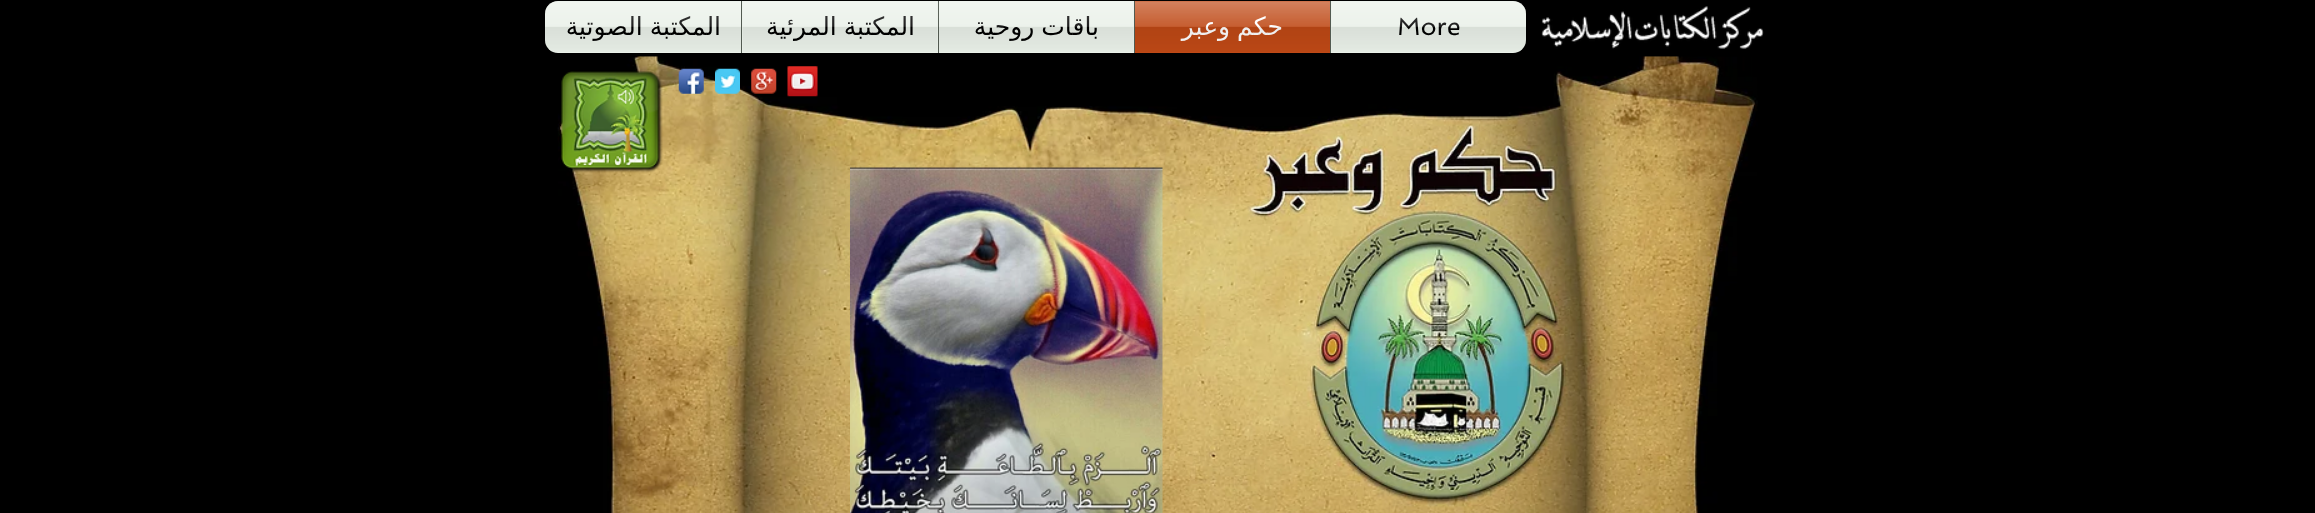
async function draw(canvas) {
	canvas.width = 2315;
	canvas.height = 513;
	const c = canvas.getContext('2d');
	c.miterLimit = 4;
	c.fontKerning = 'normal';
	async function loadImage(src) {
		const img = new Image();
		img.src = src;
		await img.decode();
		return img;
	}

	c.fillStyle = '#000';
	c.fillRect(0, 0, 2315, 513);
	c.drawImage(await loadImage('img1.png'), 1541, 6, 223, 43);
	c.drawImage(await loadImage('img8.png'), 557, 56, 1201, 457);
	c.fillStyle = '#00000099';
	c.filter = 'blur(2.5px)';
	c.beginPath();
	c.roundRect(545, 3, 981, 51, 13);
	c.fill();
	c.filter = 'none';
	c.drawImage(await loadImage('img2.png'), 545, 1, 981, 50);
	c.fillStyle = '#eaf1e9';
	c.beginPath();
	c.roundRect(1330, 1, 196, 52, [0, 13, 13, 0]);
	c.fill();
	c.fillStyle = '#525a51';
	c.fillRect(1330, 1, 1, 52);
	c.font = '25px Spinnaker';
	c.fillStyle = '#000';
	c.fillText('More', 1397, 35);
	c.drawImage(await loadImage('img3.png'), 1331, 1, 195, 51);
	c.fillStyle = '#bf4916';
	c.fillRect(1135, 1, 195, 52);
	c.fillStyle = '#525a51';
	c.fillRect(1134, 1, 1, 52);
	c.wordSpacing = '-1px';
	c.direction = 'rtl';
	c.font = '25px DejaVu Sans';
	c.fillStyle = '#fff';
	c.fillText('حكم وعبر', 1283, 35);
	c.drawImage(await loadImage('img4.png'), 1135, 1, 195, 51);
	c.fillStyle = '#eaf1e9';
	c.fillRect(939, 1, 195, 52);
	c.fillStyle = '#525a51';
	c.fillRect(938, 1, 1, 52);
	c.fillStyle = '#000';
	c.fillText('باقات روحية', 1099, 35);
	c.drawImage(await loadImage('img5.png'), 938, 1, 196, 51);
	c.fillStyle = '#eaf1e9';
	c.fillRect(742, 1, 196, 52);
	c.fillStyle = '#525a51';
	c.fillRect(741, 1, 1, 52);
	c.fillStyle = '#000';
	c.fillText('المكتبة المرئية', 915, 35);
	c.drawImage(await loadImage('img6.png'), 742, 1, 196, 51);
	c.fillStyle = '#eaf1e9';
	c.beginPath();
	c.roundRect(545, 1, 196, 52, [13, 0, 0, 13]);
	c.fill();
	c.fillStyle = '#000';
	c.fillText('المكتبة الصوتية', 721, 35);
	c.drawImage(await loadImage('img7.png'), 545, 1, 196, 51);
	c.drawImage(await loadImage('img9.png'), 850, 167, 313, 346);
	c.drawImage(await loadImage('img10.png'), 787, 66, 31, 31);
	c.drawImage(await loadImage('img11.png'), 751, 68, 26, 26);
	c.drawImage(await loadImage('img12.png'), 715, 68, 25, 26);
	c.drawImage(await loadImage('img13.png'), 678, 68, 26, 26);
	c.drawImage(await loadImage('img14.png'), 561, 71, 102, 102);
}

draw(document.querySelector('canvas'));
